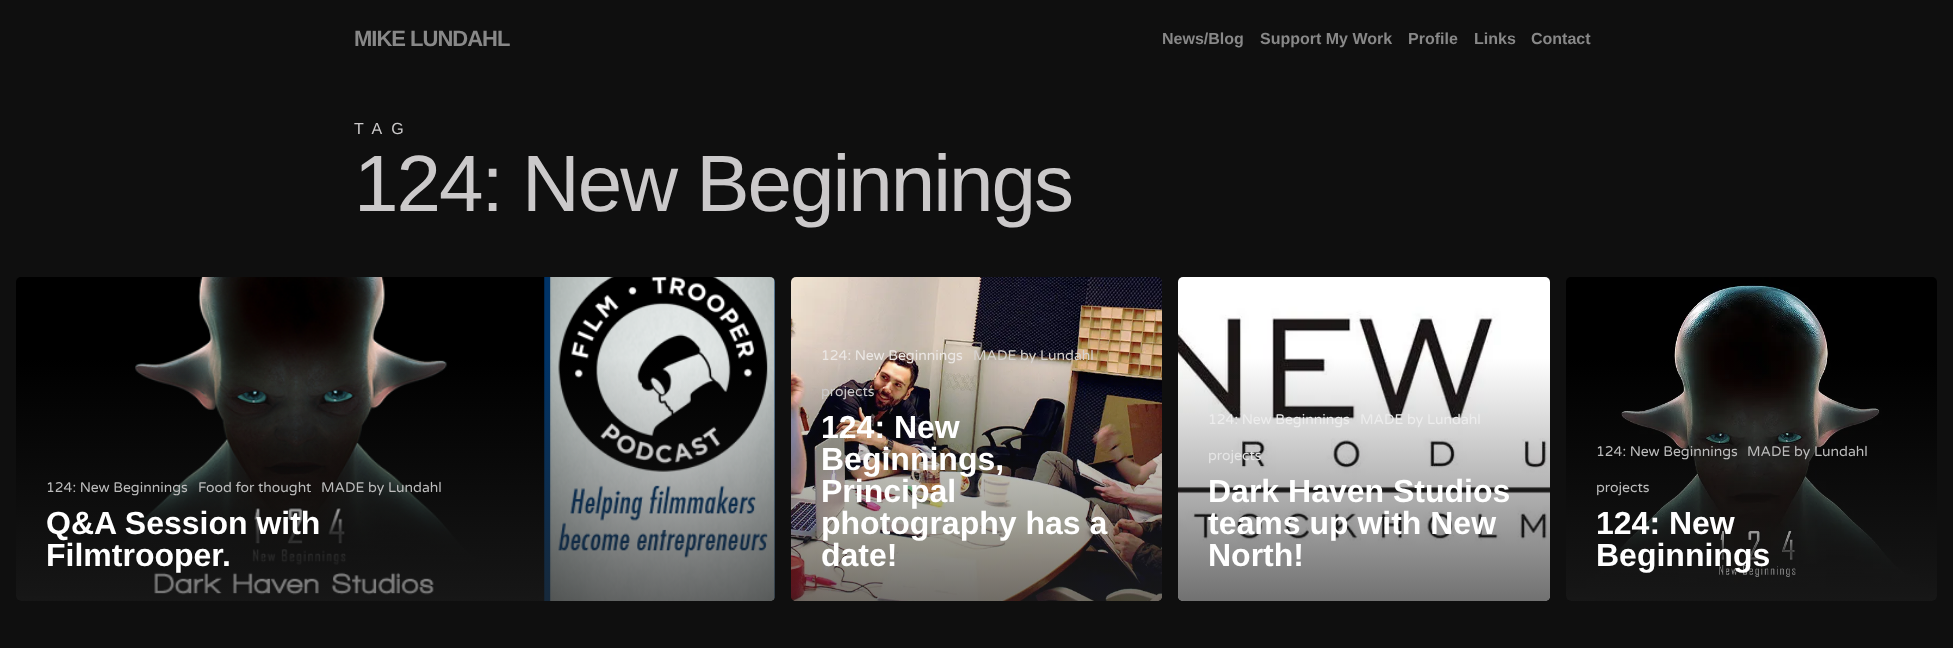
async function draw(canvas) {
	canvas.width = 1953;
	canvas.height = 648;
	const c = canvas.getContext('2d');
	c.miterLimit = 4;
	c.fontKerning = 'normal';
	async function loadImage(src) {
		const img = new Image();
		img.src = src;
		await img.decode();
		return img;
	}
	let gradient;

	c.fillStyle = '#0f0f0f';
	c.fillRect(0, 0, 1953, 648);
	c.letterSpacing = '-1px';
	c.font = 'bold 22px Liberation Sans';
	c.fillStyle = '#888';
	c.fillText('MIKE LUNDAHL', 354, 46);
	c.letterSpacing = '0px';
	c.font = 'bold 16px Liberation Sans';
	for (const [text, x, y] of [
		['News/Blog', 1162, 44],
		['Support My Work', 1260, 44],
		['Profile', 1408, 44],
		['Links', 1474, 44],
		['Contact', 1531, 44],
	]) {
		c.fillText(text, x, y);
	}
	c.letterSpacing = '9px';
	c.font = '16px Liberation Sans';
	c.fillStyle = '#cbc9ca';
	c.fillText('TAG', 354, 134);
	c.letterSpacing = '-2px';
	c.font = '80px Liberation Sans';
	c.fillText('124: New Beginnings', 354, 211);
	c.drawImage(await loadImage('img1.png'), 16, 277, 759, 324);
	gradient = c.createLinearGradient(398, 358, 398, 603);
	gradient.addColorStop(0, '#23232300');
	gradient.addColorStop(1, '#232323a6');
	c.fillStyle = gradient;
	c.beginPath();
	c.roundRect(16, 358, 759, 243, [0, 0, 5, 5]);
	c.fill();
	c.letterSpacing = '0px';
	c.font = '14px Varela Round';
	c.fillStyle = '#bcbcbc';
	for (const [text, x, y] of [
		['124: New Beginnings', 46, 492],
		['Food for thought', 198, 492],
		['MADE by Lundahl', 321, 492],
	]) {
		c.fillText(text, x, y);
	}
	c.font = 'bold 32px Liberation Sans';
	c.fillStyle = '#fff';
	c.fillText('Q&A Session with', 46, 534);
	c.fillText('Filmtrooper.', 46, 566);
	c.drawImage(await loadImage('img2.png'), 791, 277, 371, 324);
	gradient = c.createLinearGradient(978, 358, 978, 603);
	gradient.addColorStop(0, '#23232300');
	gradient.addColorStop(1, '#232323a6');
	c.fillStyle = gradient;
	c.beginPath();
	c.roundRect(791, 358, 371, 243, [0, 0, 5, 5]);
	c.fill();
	c.font = '14px Varela Round';
	c.fillStyle = '#ebe7e4';
	c.fillText('124: New Beginnings', 821, 360);
	c.fillStyle = '#d7d3d0';
	c.fillText('MADE by Lundahl', 973, 360);
	c.fillStyle = '#cbc9ca';
	c.fillText('projects', 821, 396);
	c.font = 'bold 32px Liberation Sans';
	c.fillStyle = '#fff';
	for (const [text, x, y] of [
		['124: New', 821, 438],
		['Beginnings,', 821, 470],
		['Principal', 821, 502],
		['photography has a', 821, 534],
		['date!', 821, 566],
	]) {
		c.fillText(text, x, y);
	}
	c.drawImage(await loadImage('img3.png'), 1178, 277, 372, 324);
	gradient = c.createLinearGradient(1365, 358, 1365, 603);
	gradient.addColorStop(0, '#23232300');
	gradient.addColorStop(1, '#232323a6');
	c.fillStyle = gradient;
	c.beginPath();
	c.roundRect(1178, 358, 372, 243, [0, 0, 5, 5]);
	c.fill();
	c.font = '14px Varela Round';
	c.fillStyle = '#ededed';
	c.fillText('124: New Beginnings', 1208, 424);
	c.fillText('MADE by Lundahl', 1360, 424);
	c.fillStyle = '#e5e5e5';
	c.fillText('projects', 1208, 460);
	c.font = 'bold 32px Liberation Sans';
	c.fillStyle = '#fff';
	for (const [text, x, y] of [
		['Dark Haven Studios', 1208, 502],
		['teams up with New', 1208, 534],
		['North!', 1208, 566],
	]) {
		c.fillText(text, x, y);
	}
	c.drawImage(await loadImage('img4.png'), 1566, 277, 371, 324);
	gradient = c.createLinearGradient(1753, 358, 1753, 603);
	gradient.addColorStop(0, '#23232300');
	gradient.addColorStop(1, '#232323a6');
	c.fillStyle = gradient;
	c.beginPath();
	c.roundRect(1566, 358, 371, 243, [0, 0, 5, 5]);
	c.fill();
	c.font = '14px Varela Round';
	c.fillStyle = '#bcbcbc';
	for (const [text, x, y] of [
		['124: New Beginnings', 1596, 456],
		['MADE by Lundahl', 1747, 456],
		['projects', 1596, 492],
	]) {
		c.fillText(text, x, y);
	}
	c.font = 'bold 32px Liberation Sans';
	c.fillStyle = '#fff';
	c.fillText('124: New', 1596, 534);
	c.fillText('Beginnings', 1596, 566);
}

draw(document.querySelector('canvas'));
